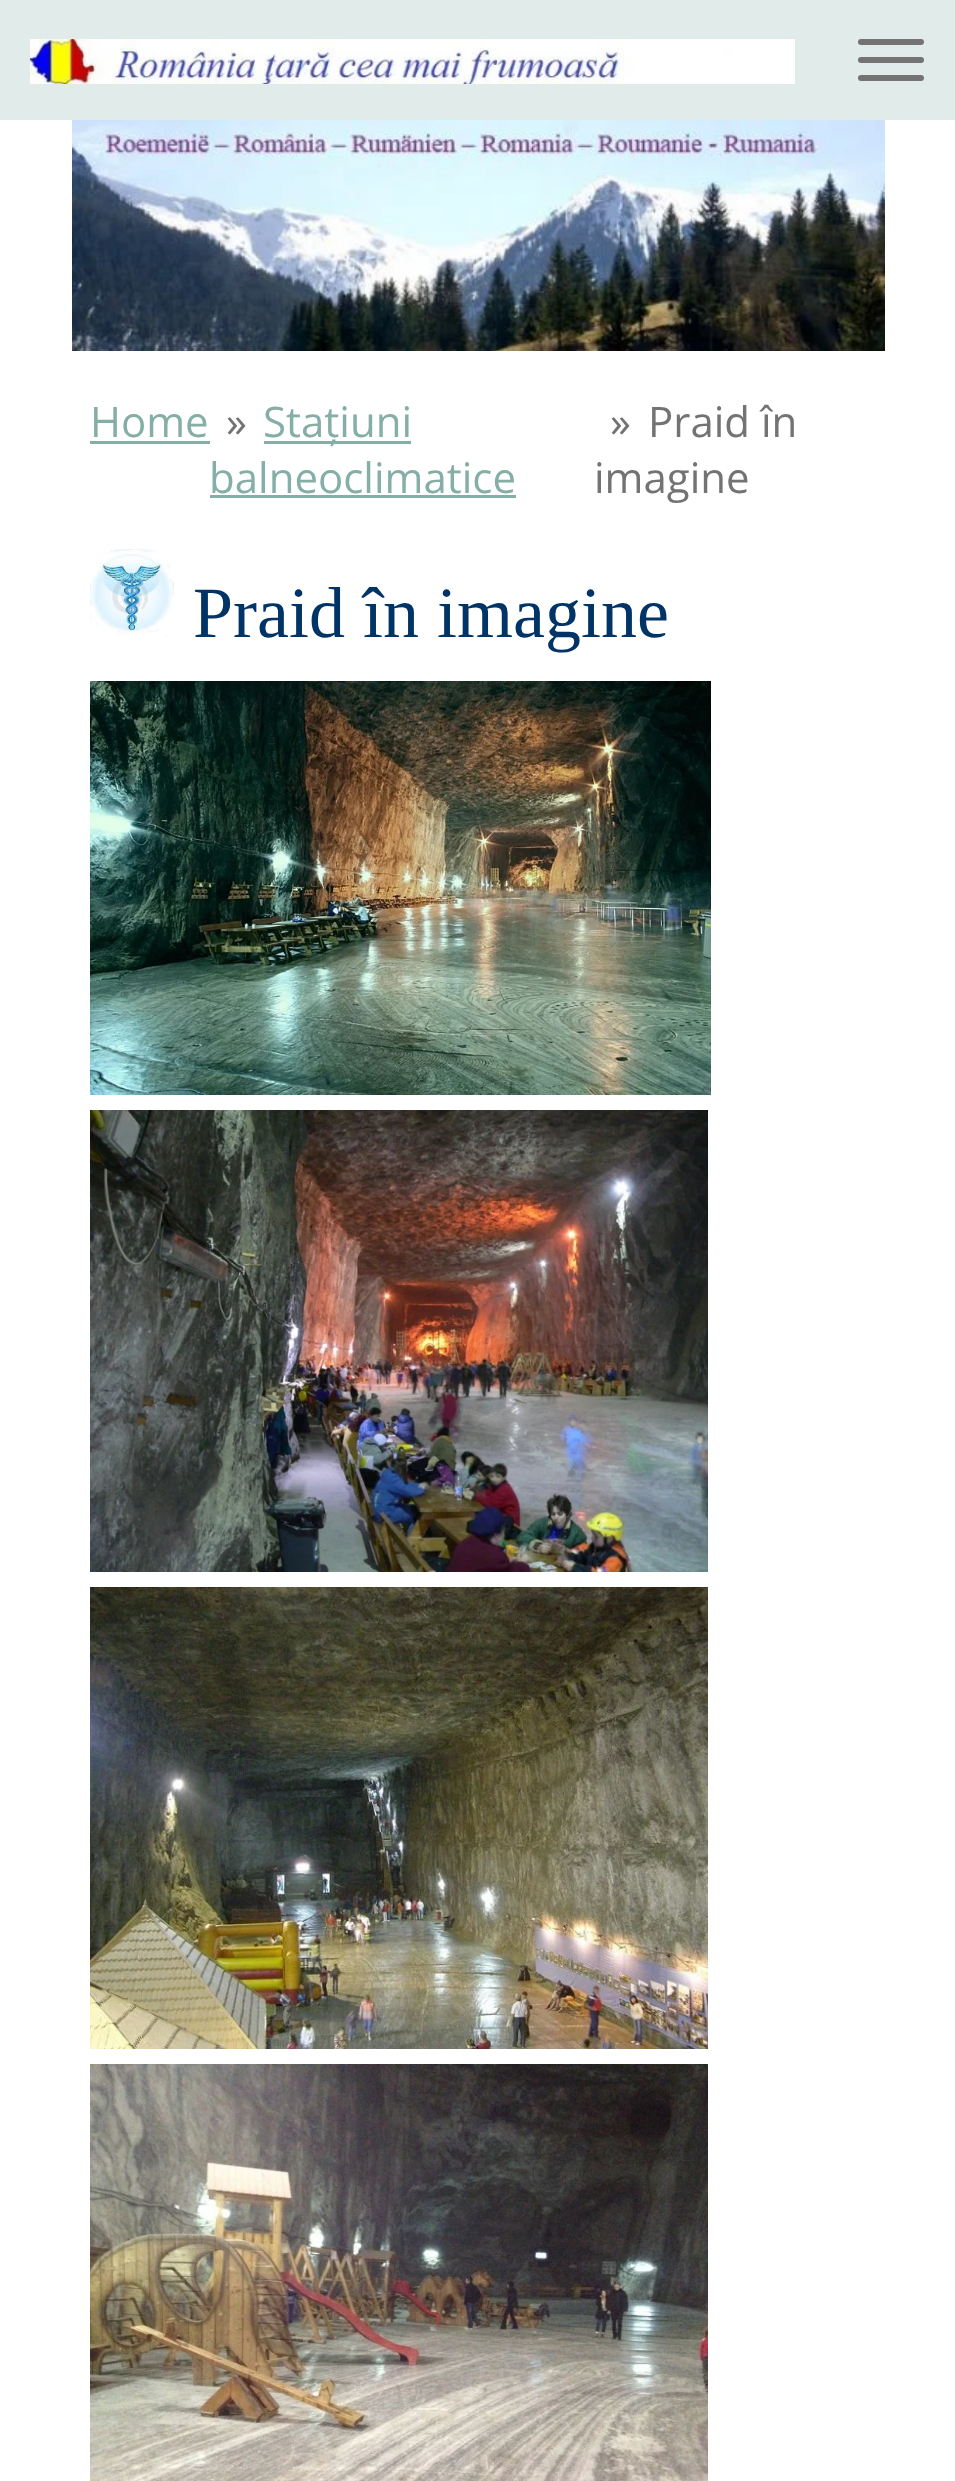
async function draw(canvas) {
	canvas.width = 955;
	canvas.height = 2481;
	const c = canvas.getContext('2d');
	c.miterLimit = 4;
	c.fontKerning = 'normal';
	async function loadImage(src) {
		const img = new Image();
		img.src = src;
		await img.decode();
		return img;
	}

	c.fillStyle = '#fff';
	c.fillRect(0, 0, 955, 2481);
	c.fillStyle = '#e1ebe9';
	c.fillRect(0, 0, 955, 120);
	c.fillStyle = '#737373';
	c.beginPath();
	c.roundRect(858, 57, 66, 6, 3);
	c.fill();
	c.beginPath();
	c.roundRect(858, 39, 66, 6, 3);
	c.fill();
	c.beginPath();
	c.roundRect(858, 75, 66, 6, 3);
	c.fill();
	c.drawImage(await loadImage('img1.png'), 30, 39, 765, 45);
	c.drawImage(await loadImage('img2.png'), 72, 120, 813, 231);
	c.font = '42px Open Sans';
	c.fillStyle = '#85aea6';
	c.fillText('Home', 90, 437);
	c.fillRect(90, 441, 120, 3);
	c.fillStyle = '#737373';
	c.fillText('»', 226, 437);
	c.fillStyle = '#85aea6';
	c.fillRect(264, 441, 147, 3);
	c.fillText('Stațiuni', 263, 437);
	c.fillText('balneoclimatice', 209, 493);
	c.fillRect(210, 495, 306, 3);
	c.fillStyle = '#737373';
	for (const [text, x, y] of [
		['»', 610, 437],
		['Praid în', 648, 437],
		['imagine', 594, 493],
	]) {
		c.fillText(text, x, y);
	}
	c.drawImage(await loadImage('img3.png'), 90, 549, 84, 87);
	c.font = '72px Liberation Serif';
	c.fillStyle = '#036';
	c.fillText('Praid în imagine', 193, 637);
	c.drawImage(await loadImage('img4.png'), 90, 681, 621, 414);
	c.drawImage(await loadImage('img5.png'), 90, 1110, 618, 462);
	c.drawImage(await loadImage('img6.png'), 90, 1587, 618, 462);
	c.drawImage(await loadImage('img7.png'), 90, 2064, 618, 417);
}

draw(document.querySelector('canvas'));
